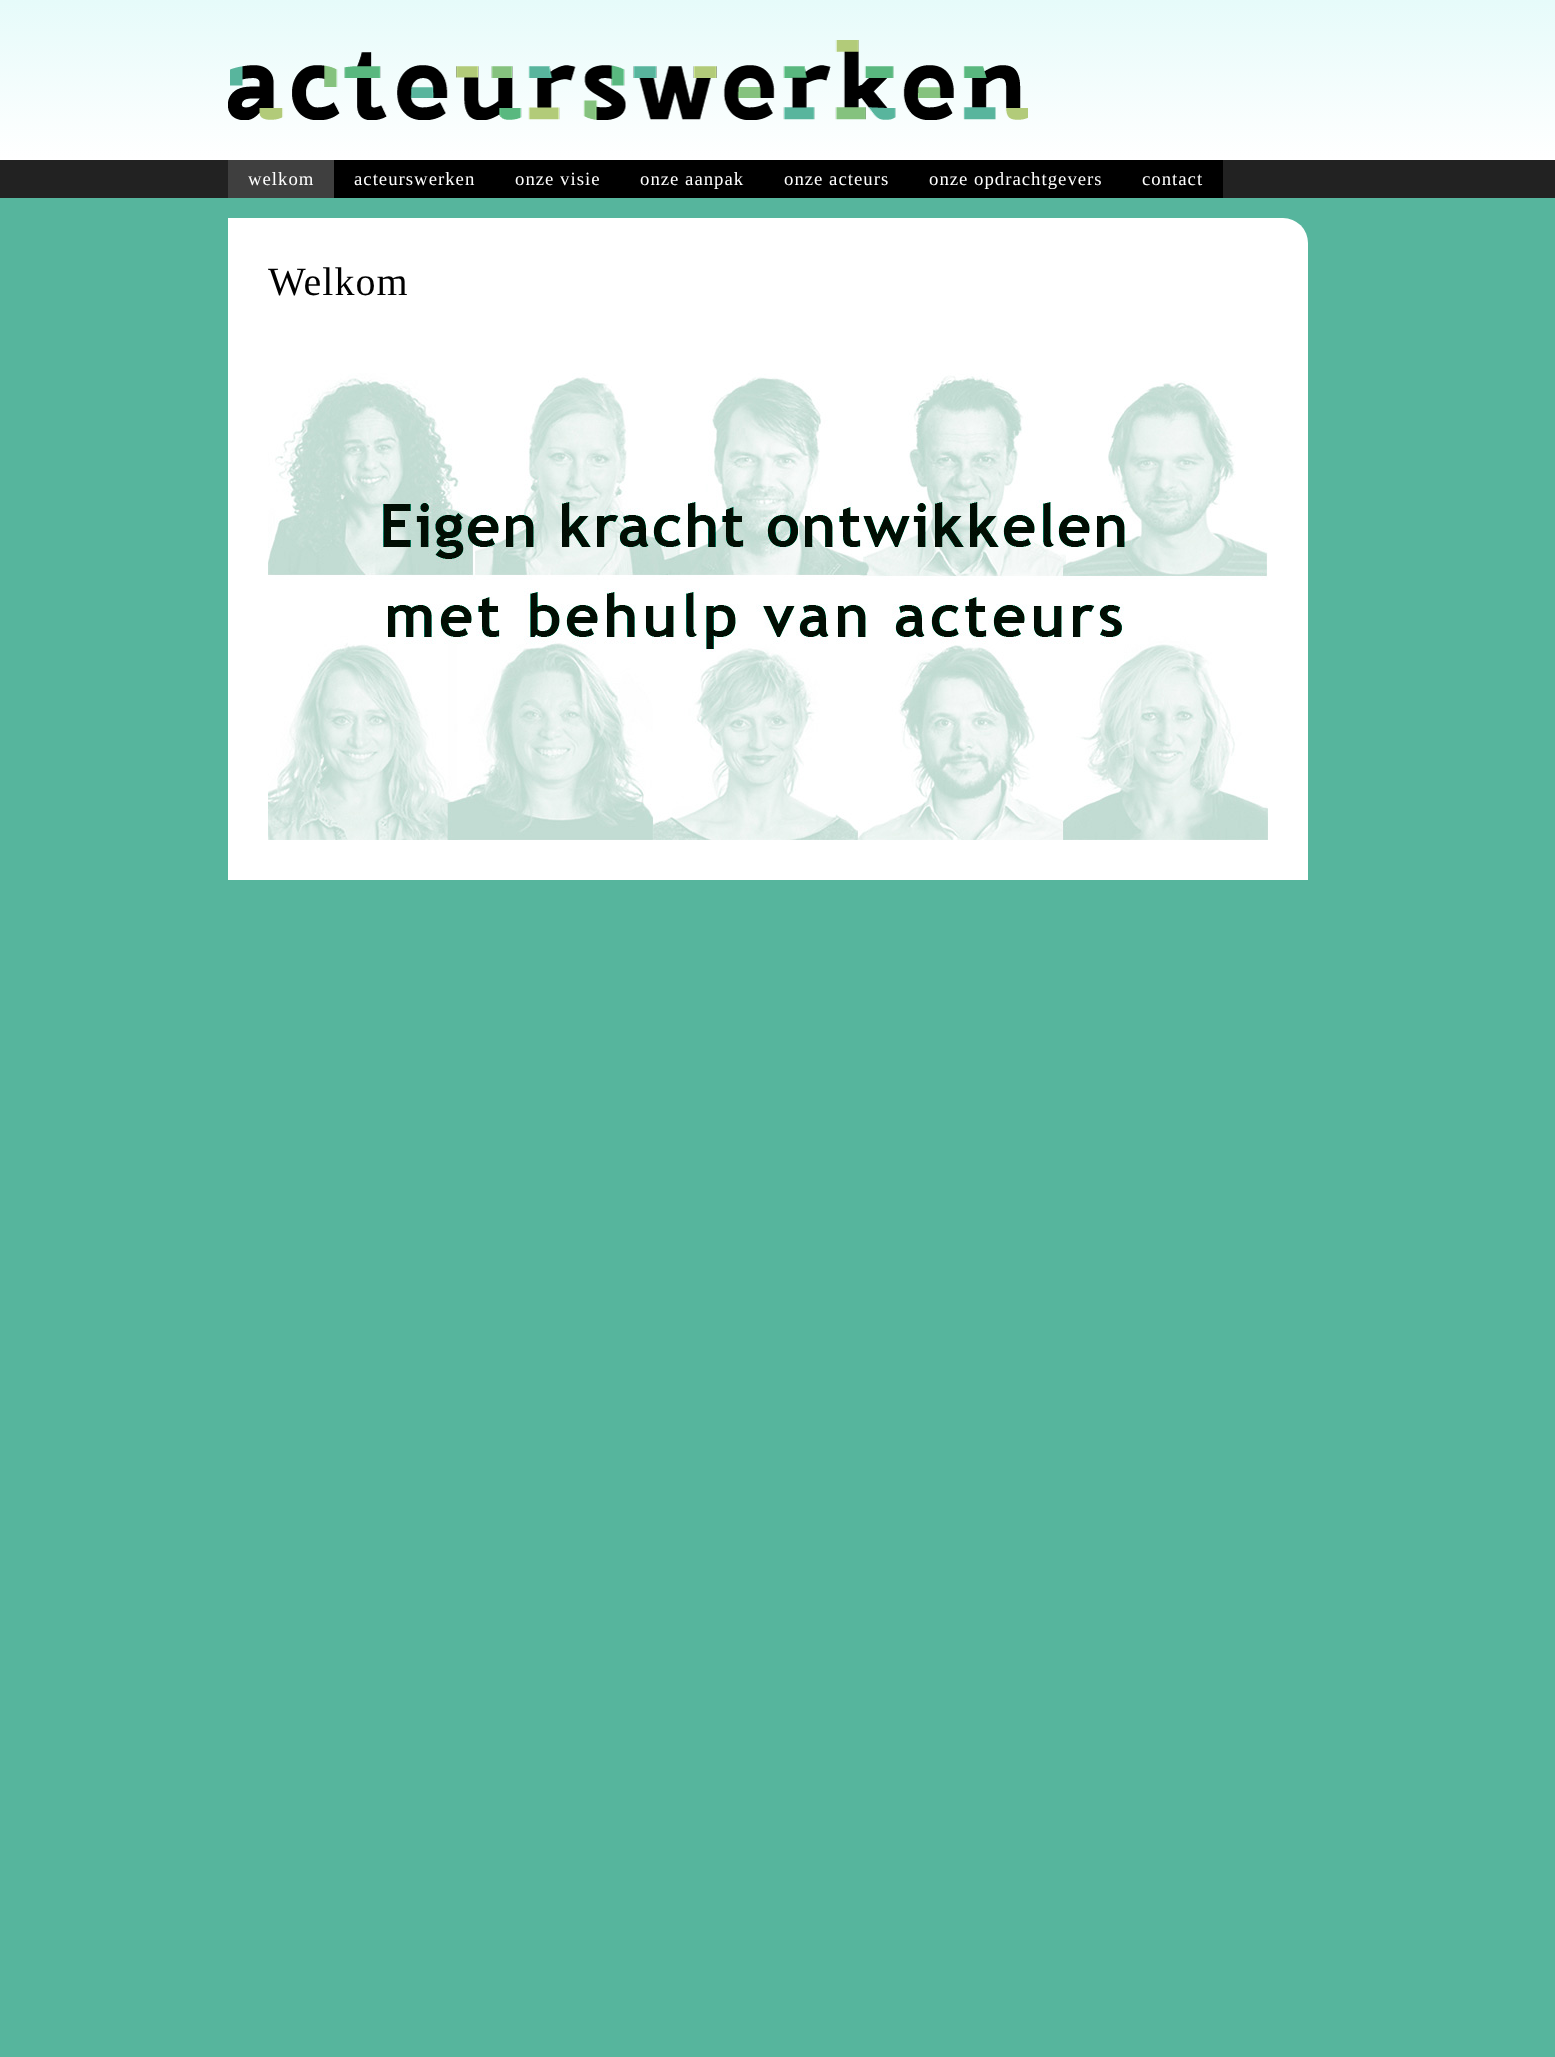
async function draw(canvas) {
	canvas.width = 1555;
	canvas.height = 2057;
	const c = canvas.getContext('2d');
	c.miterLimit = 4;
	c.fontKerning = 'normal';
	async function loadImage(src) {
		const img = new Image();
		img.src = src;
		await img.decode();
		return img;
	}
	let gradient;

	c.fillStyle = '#56b59d';
	c.fillRect(0, 0, 1555, 2057);
	gradient = c.createLinearGradient(778, 0, 778, 160);
	gradient.addColorStop(0, '#e6fbfa');
	gradient.addColorStop(1, '#fff');
	c.fillStyle = gradient;
	c.fillRect(0, 0, 1555, 160);
	c.drawImage(await loadImage('img1.png'), 228, 40, 800, 80);
	c.fillStyle = '#222';
	c.fillRect(0, 160, 1555, 38);
	c.fillStyle = '#3f3f3f';
	c.fillRect(228, 160, 106, 38);
	c.letterSpacing = '1px';
	c.font = '18.75px Liberation Serif';
	c.fillStyle = '#fff';
	c.fillText('welkom', 248, 185);
	c.fillStyle = '#000';
	c.fillRect(334, 160, 889, 38);
	c.fillStyle = '#fff';
	for (const [text, x, y] of [
		['acteurswerken', 354, 185],
		['onze visie', 515, 185],
		['onze aanpak', 640, 185],
		['onze acteurs', 784, 185],
		['onze opdrachtgevers', 929, 185],
		['contact', 1142, 185],
	]) {
		c.fillText(text, x, y);
	}
	c.beginPath();
	c.roundRect(228, 218, 1080, 662, [0, 25, 0, 0]);
	c.fill();
	c.font = '40px Liberation Serif';
	c.fillStyle = '#000';
	c.fillText('Welkom', 268, 295);
	c.drawImage(await loadImage('img2.png'), 268, 373, 1000, 467);
}

draw(document.querySelector('canvas'));
